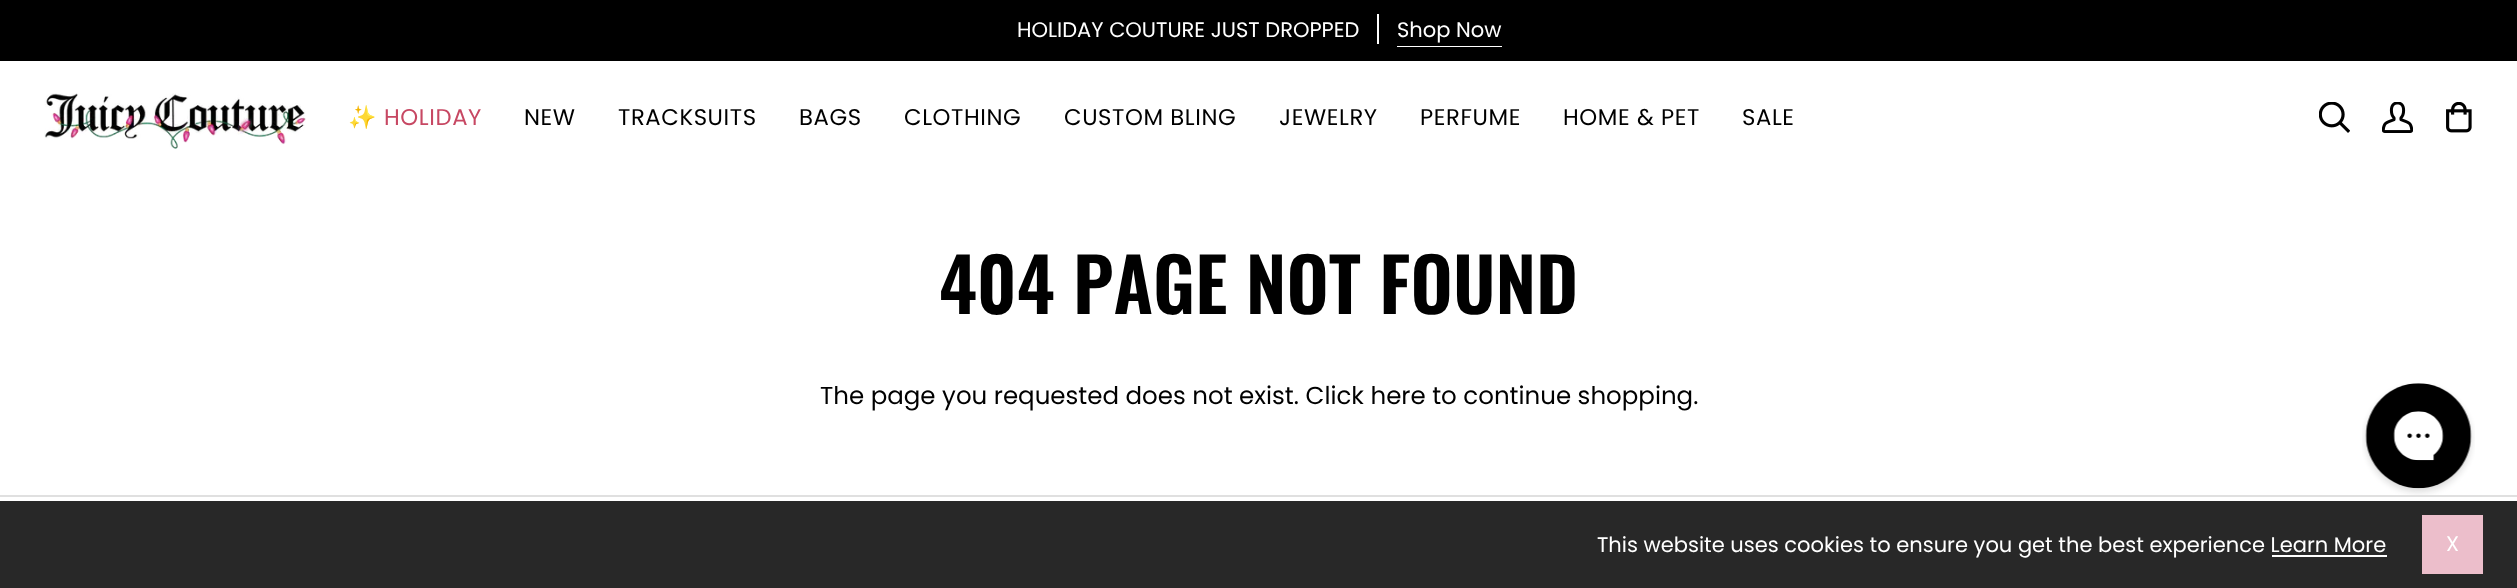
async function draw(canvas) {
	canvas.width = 2517;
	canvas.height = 588;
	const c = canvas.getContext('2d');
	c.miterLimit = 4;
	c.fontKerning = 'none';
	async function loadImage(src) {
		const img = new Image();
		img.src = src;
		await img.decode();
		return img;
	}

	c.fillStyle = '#fff';
	c.fillRect(0, 0, 2517, 588);
	c.fillStyle = '#000';
	c.fillRect(0, 0, 2517, 61);
	c.font = '21px Poppins';
	c.fillStyle = '#fff';
	c.fillText('HOLIDAY COUTURE JUST DROPPED', 1017, 37);
	c.fillRect(1377, 14, 2, 30);
	c.fillText('Shop Now', 1397, 37);
	c.beginPath();
	c.moveTo(1397, 46);
	c.lineTo(1397, 47);
	c.lineTo(1502, 47);
	c.lineTo(1502, 48);
	c.lineTo(1502, 46);
	c.closePath();
	c.fill();
	c.drawImage(await loadImage('img1.png'), 44, 93, 262, 56);
	c.letterSpacing = '0.6px';
	c.font = '22.75px Noto Color Emoji';
	c.fillStyle = '#c74863';
	c.fillText('✨', 348, 125);
	c.font = '22.75px Poppins';
	c.fillText('HOLIDAY', 384, 125);
	c.fillStyle = '#000';
	for (const [text, x, y] of [
		['NEW', 524, 125],
		['TRACKSUITS', 618, 125],
		['BAGS', 799, 125],
		['CLOTHING', 904, 125],
		['CUSTOM BLING', 1064, 125],
		['JEWELRY', 1279, 125],
		['PERFUME', 1420, 125],
		['HOME & PET', 1563, 125],
		['SALE', 1742, 125],
	]) {
		c.fillText(text, x, y);
	}
	c.drawImage(await loadImage('img2.png'), 2319, 102, 31, 31);
	c.drawImage(await loadImage('img3.png'), 2382, 102, 31, 31);
	c.drawImage(await loadImage('img4.png'), 2446, 102, 26, 31);
	c.letterSpacing = '0px';
	c.font = '600 73.5px Oswald';
	c.fillText('404 PAGE NOT FOUND', 939, 314);
	c.font = '24.5px Poppins';
	c.fillText('The page you requested does not exist. Click here to continue shopping.', 820, 404);
	c.drawImage(await loadImage('img5.png'), 2362, 383, 113, 112);
	c.fillStyle = '#e0e0e0';
	c.fillRect(0, 495, 2517, 2);
	c.fillStyle = '#282828';
	c.fillRect(0, 501, 2517, 87);
	c.font = '21px Poppins';
	c.fillStyle = '#fff';
	c.fillText('This website uses cookies to ensure you get the best experience Learn More', 1597, 552);
	c.fillRect(2272, 555, 115, 2);
	c.fillStyle = '#ecbecb';
	c.fillRect(2422, 515, 61, 59);
	c.fillStyle = '#fff';
	c.fillText('X', 2446, 551);
}

draw(document.querySelector('canvas'));
